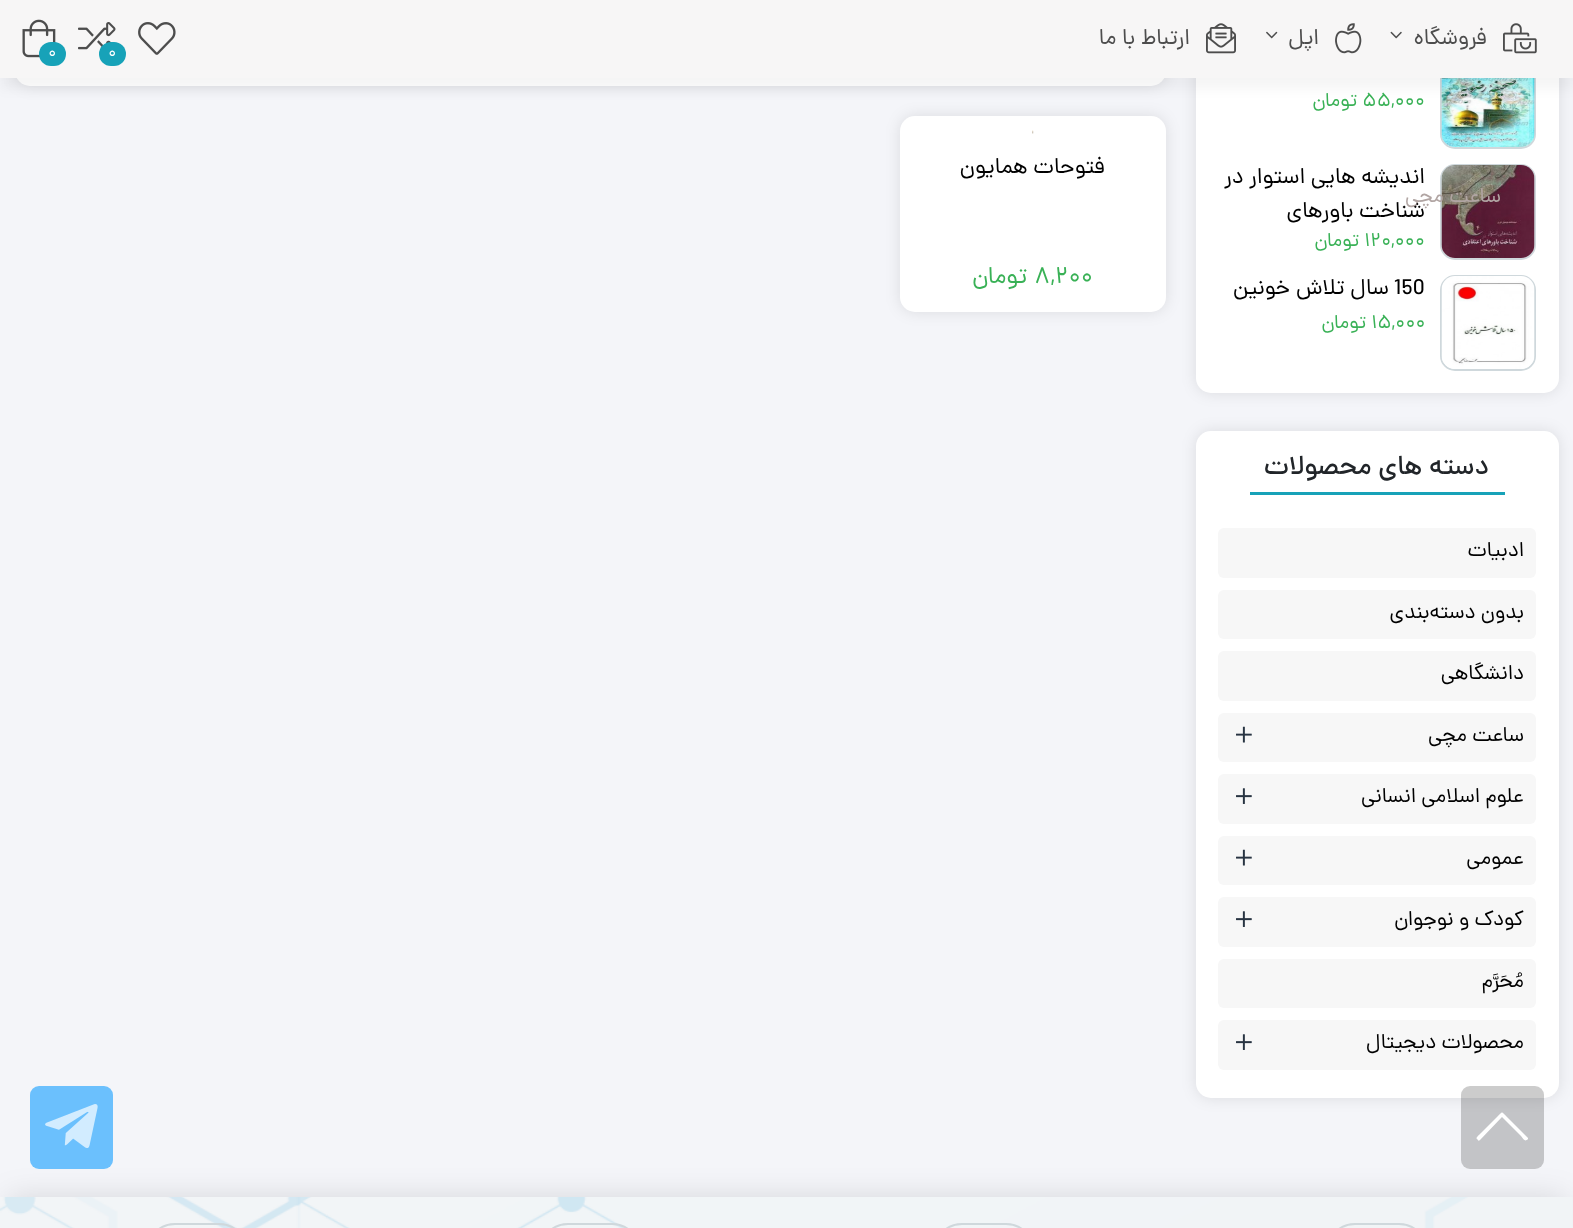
async function draw(canvas) {
	canvas.width = 1573;
	canvas.height = 1228;
	const c = canvas.getContext('2d');
	c.miterLimit = 4;
	c.fontKerning = 'normal';
	async function loadImage(src) {
		const img = new Image();
		img.src = src;
		await img.decode();
		return img;
	}

	c.fillStyle = '#f4f5f9';
	c.fillRect(0, 0, 1573, 1228);
	c.fillStyle = '#0000001a';
	c.filter = 'blur(7.5px)';
	c.beginPath();
	c.roundRect(1196, -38, 363, 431, 15);
	c.fill();
	c.filter = 'none';
	c.fillStyle = '#fff';
	c.beginPath();
	c.roundRect(1196, -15, 363, 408, 15);
	c.fill();
	c.beginPath();
	c.roundRect(1441, 54, 94, 94, 14);
	c.strokeStyle = '#cfd8dc';
	c.lineWidth = 2;
	c.stroke();
	c.drawImage(await loadImage('img9.png'), 1441, 78, 94, 69);
	c.fillStyle = '#0000001a';
	c.filter = 'blur(7.5px)';
	c.beginPath();
	c.roundRect(15, 0, 1151, 86, 15);
	c.fill();
	c.filter = 'none';
	c.fillStyle = '#fff';
	c.beginPath();
	c.roundRect(15, 0, 1151, 86, 15);
	c.fill();
	c.fillStyle = '#0000000a';
	c.filter = 'blur(6px)';
	c.beginPath();
	c.rect(0, 11, 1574, 78);
	c.fill();
	c.filter = 'none';
	c.fillStyle = '#f7f6f6';
	c.fillRect(0, 0, 1573, 78);
	c.drawImage(await loadImage('img1.png'), 1503, 23, 34, 31);
	c.direction = 'rtl';
	c.font = '22.5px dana';
	c.fillStyle = '#4d4d4d';
	c.fillText('فروشگاه', 1487, 44);
	c.drawImage(await loadImage('img2.png'), 1390, 31, 12, 8);
	c.beginPath();
	c.roundRect(1441, 165, 94, 94, 14);
	c.stroke();
	c.drawImage(await loadImage('img10.png'), 1441, 165, 94, 93);
	c.font = '21px dana';
	c.fillStyle = '#b1a5a3';
	c.fillText('ساعت مچی', 1501, 202);
	c.drawImage(await loadImage('img3.png'), 1335, 23, 27, 31);
	c.font = '22.5px dana';
	c.fillStyle = '#4d4d4d';
	c.fillText('اپل', 1319, 44);
	c.drawImage(await loadImage('img4.png'), 1266, 31, 12, 8);
	c.drawImage(await loadImage('img5.png'), 1206, 23, 30, 31);
	c.fillText('ارتباط با ما', 1190, 44);
	c.drawImage(await loadImage('img6.png'), 138, 22, 38, 33);
	c.drawImage(await loadImage('img7.png'), 78, 22, 38, 28);
	c.fillStyle = '#17a2b8';
	c.beginPath();
	c.roundRect(99, 42, 27, 24, 12);
	c.fill();
	c.direction = 'ltr';
	c.font = '16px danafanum';
	c.fillStyle = '#fff';
	c.fillText('0', 108, 57);
	c.drawImage(await loadImage('img8.png'), 22, 19, 34, 39);
	c.fillStyle = '#17a2b8';
	c.beginPath();
	c.roundRect(39, 42, 27, 24, 12);
	c.fill();
	c.fillStyle = '#fff';
	c.fillText('0', 48, 57);
	c.font = '19.5px danafanum';
	c.fillStyle = '#39b156';
	c.fillText('۵۵,۰۰۰', 1362, 106);
	c.direction = 'rtl';
	c.fillText('تومان', 1357, 106);
	c.font = '22.5px dana';
	c.fillStyle = '#000';
	c.fillText('اندیشه هایی استوار در', 1425, 183);
	c.fillText('شناخت باورهای', 1425, 217);
	c.direction = 'ltr';
	c.font = '19.5px danafanum';
	c.fillStyle = '#39b156';
	c.fillText('۱۲۰,۰۰۰', 1364, 246);
	c.direction = 'rtl';
	c.fillText('تومان', 1359, 246);
	c.beginPath();
	c.roundRect(1441, 276, 94, 94, 14);
	c.stroke();
	c.drawImage(await loadImage('img11.png'), 1441, 276, 94, 93);
	c.direction = 'ltr';
	c.font = '22.5px dana';
	c.fillStyle = '#000';
	c.fillText('150', 1394, 294);
	c.direction = 'rtl';
	c.fillText('سال تلاش خونین', 1389, 294);
	c.direction = 'ltr';
	c.font = '19.5px danafanum';
	c.fillStyle = '#39b156';
	c.fillText('۱۵,۰۰۰', 1371, 328);
	c.direction = 'rtl';
	c.fillText('تومان', 1366, 328);
	c.fillStyle = '#0000001a';
	c.filter = 'blur(7.5px)';
	c.beginPath();
	c.roundRect(1196, 431, 363, 667, 15);
	c.fill();
	c.filter = 'none';
	c.fillStyle = '#fff';
	c.beginPath();
	c.roundRect(1196, 431, 363, 667, 15);
	c.fill();
	c.fillStyle = '#17a2b8';
	c.fillRect(1250, 492, 255, 3);
	c.font = '500 27px dana';
	c.fillStyle = '#212529';
	c.fillText('دسته های محصولات', 1489, 474);
	c.fillStyle = '#f7f7f7';
	c.beginPath();
	c.roundRect(1218, 528, 318, 50, 6);
	c.fill();
	c.font = '21px dana';
	c.fillStyle = '#000';
	c.fillText('ادبیات', 1524, 556);
	c.fillStyle = '#f7f7f7';
	c.beginPath();
	c.roundRect(1218, 590, 318, 49, 6);
	c.fill();
	c.fillStyle = '#000';
	c.fillText('بدون دسته‌بندی', 1524, 618);
	c.fillStyle = '#f7f7f7';
	c.beginPath();
	c.roundRect(1218, 651, 318, 50, 6);
	c.fill();
	c.fillStyle = '#000';
	c.fillText('دانشگاهی', 1524, 679);
	c.fillStyle = '#f7f7f7';
	c.beginPath();
	c.roundRect(1218, 713, 318, 49, 6);
	c.fill();
	c.fillStyle = '#000';
	c.fillText('ساعت مچی', 1524, 741);
	c.drawImage(await loadImage('img12.png'), 1236, 726, 16, 17);
	c.fillStyle = '#f7f7f7';
	c.beginPath();
	c.roundRect(1218, 774, 318, 50, 6);
	c.fill();
	c.fillStyle = '#000';
	c.fillText('علوم اسلامی انسانی', 1524, 802);
	c.drawImage(await loadImage('img13.png'), 1236, 788, 16, 16);
	c.fillStyle = '#f7f7f7';
	c.beginPath();
	c.roundRect(1218, 836, 318, 49, 6);
	c.fill();
	c.fillStyle = '#000';
	c.fillText('عمومی', 1524, 864);
	c.drawImage(await loadImage('img12.png'), 1236, 849, 16, 17);
	c.fillStyle = '#f7f7f7';
	c.beginPath();
	c.roundRect(1218, 897, 318, 50, 6);
	c.fill();
	c.fillStyle = '#000';
	c.fillText('کودک و نوجوان', 1524, 925);
	c.drawImage(await loadImage('img13.png'), 1236, 911, 16, 16);
	c.fillStyle = '#f7f7f7';
	c.beginPath();
	c.roundRect(1218, 959, 318, 49, 6);
	c.fill();
	c.fillStyle = '#000';
	c.fillText('مُحَرَّم', 1524, 987);
	c.fillStyle = '#f7f7f7';
	c.beginPath();
	c.roundRect(1218, 1020, 318, 50, 6);
	c.fill();
	c.fillStyle = '#000';
	c.fillText('محصولات دیجیتال', 1524, 1048);
	c.drawImage(await loadImage('img13.png'), 1236, 1034, 16, 16);
	c.fillStyle = '#0000001a';
	c.filter = 'blur(7.5px)';
	c.beginPath();
	c.roundRect(900, 116, 266, 196, 15);
	c.fill();
	c.filter = 'none';
	c.fillStyle = '#fff';
	c.beginPath();
	c.roundRect(900, 116, 266, 196, 15);
	c.fill();
	c.drawImage(await loadImage('img14.png'), 1032, 130, 2, 4);
	c.font = '22.5px dana';
	c.fillStyle = '#000';
	c.fillText('فتوحات همایون', 1105, 173);
	c.direction = 'ltr';
	c.font = '24px danafanum';
	c.fillStyle = '#39b156';
	c.fillText('۸,۲۰۰', 1034, 283);
	c.direction = 'rtl';
	c.fillText('تومان', 1027, 283);
	c.fillStyle = '#0000001f';
	c.filter = 'blur(15px)';
	c.beginPath();
	c.rect(9, 1197, 1556, 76);
	c.fill();
	c.filter = 'none';
	c.fillStyle = '#00000033';
	c.beginPath();
	c.roundRect(1461, 1086, 83, 83, 9);
	c.fill();
	c.fillStyle = '#fff';
	c.beginPath();
	c.moveTo(1477, 1139);
	c.bezierCurveTo(1475, 1138, 1479, 1135, 1481, 1133);
	c.lineTo(1497, 1117);
	c.bezierCurveTo(1503, 1111, 1501, 1111, 1507, 1117);
	c.lineTo(1528, 1138);
	c.lineTo(1528, 1139);
	c.bezierCurveTo(1525, 1142, 1524, 1140, 1521, 1136);
	c.lineTo(1502, 1117);
	c.lineTo(1480, 1140);
	c.bezierCurveTo(1479, 1141, 1478, 1141, 1478, 1140);
	c.closePath();
	c.fill();
	c.fillStyle = '#6bc0fd';
	c.beginPath();
	c.roundRect(30, 1086, 83, 83, 9);
	c.fill();
	c.drawImage(await loadImage('img15.png'), 45, 1104, 53, 44);
	c.drawImage(await loadImage('img16.png'), 0, 1197, 1573, 31);
	c.beginPath();
	c.roundRect(1327, 1224, 100, 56, 50);
	c.stroke();
	c.beginPath();
	c.roundRect(934, 1224, 100, 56, 50);
	c.stroke();
	c.beginPath();
	c.roundRect(540, 1224, 100, 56, 50);
	c.stroke();
	c.beginPath();
	c.roundRect(147, 1224, 100, 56, 50);
	c.stroke();
}

draw(document.querySelector('canvas'));
